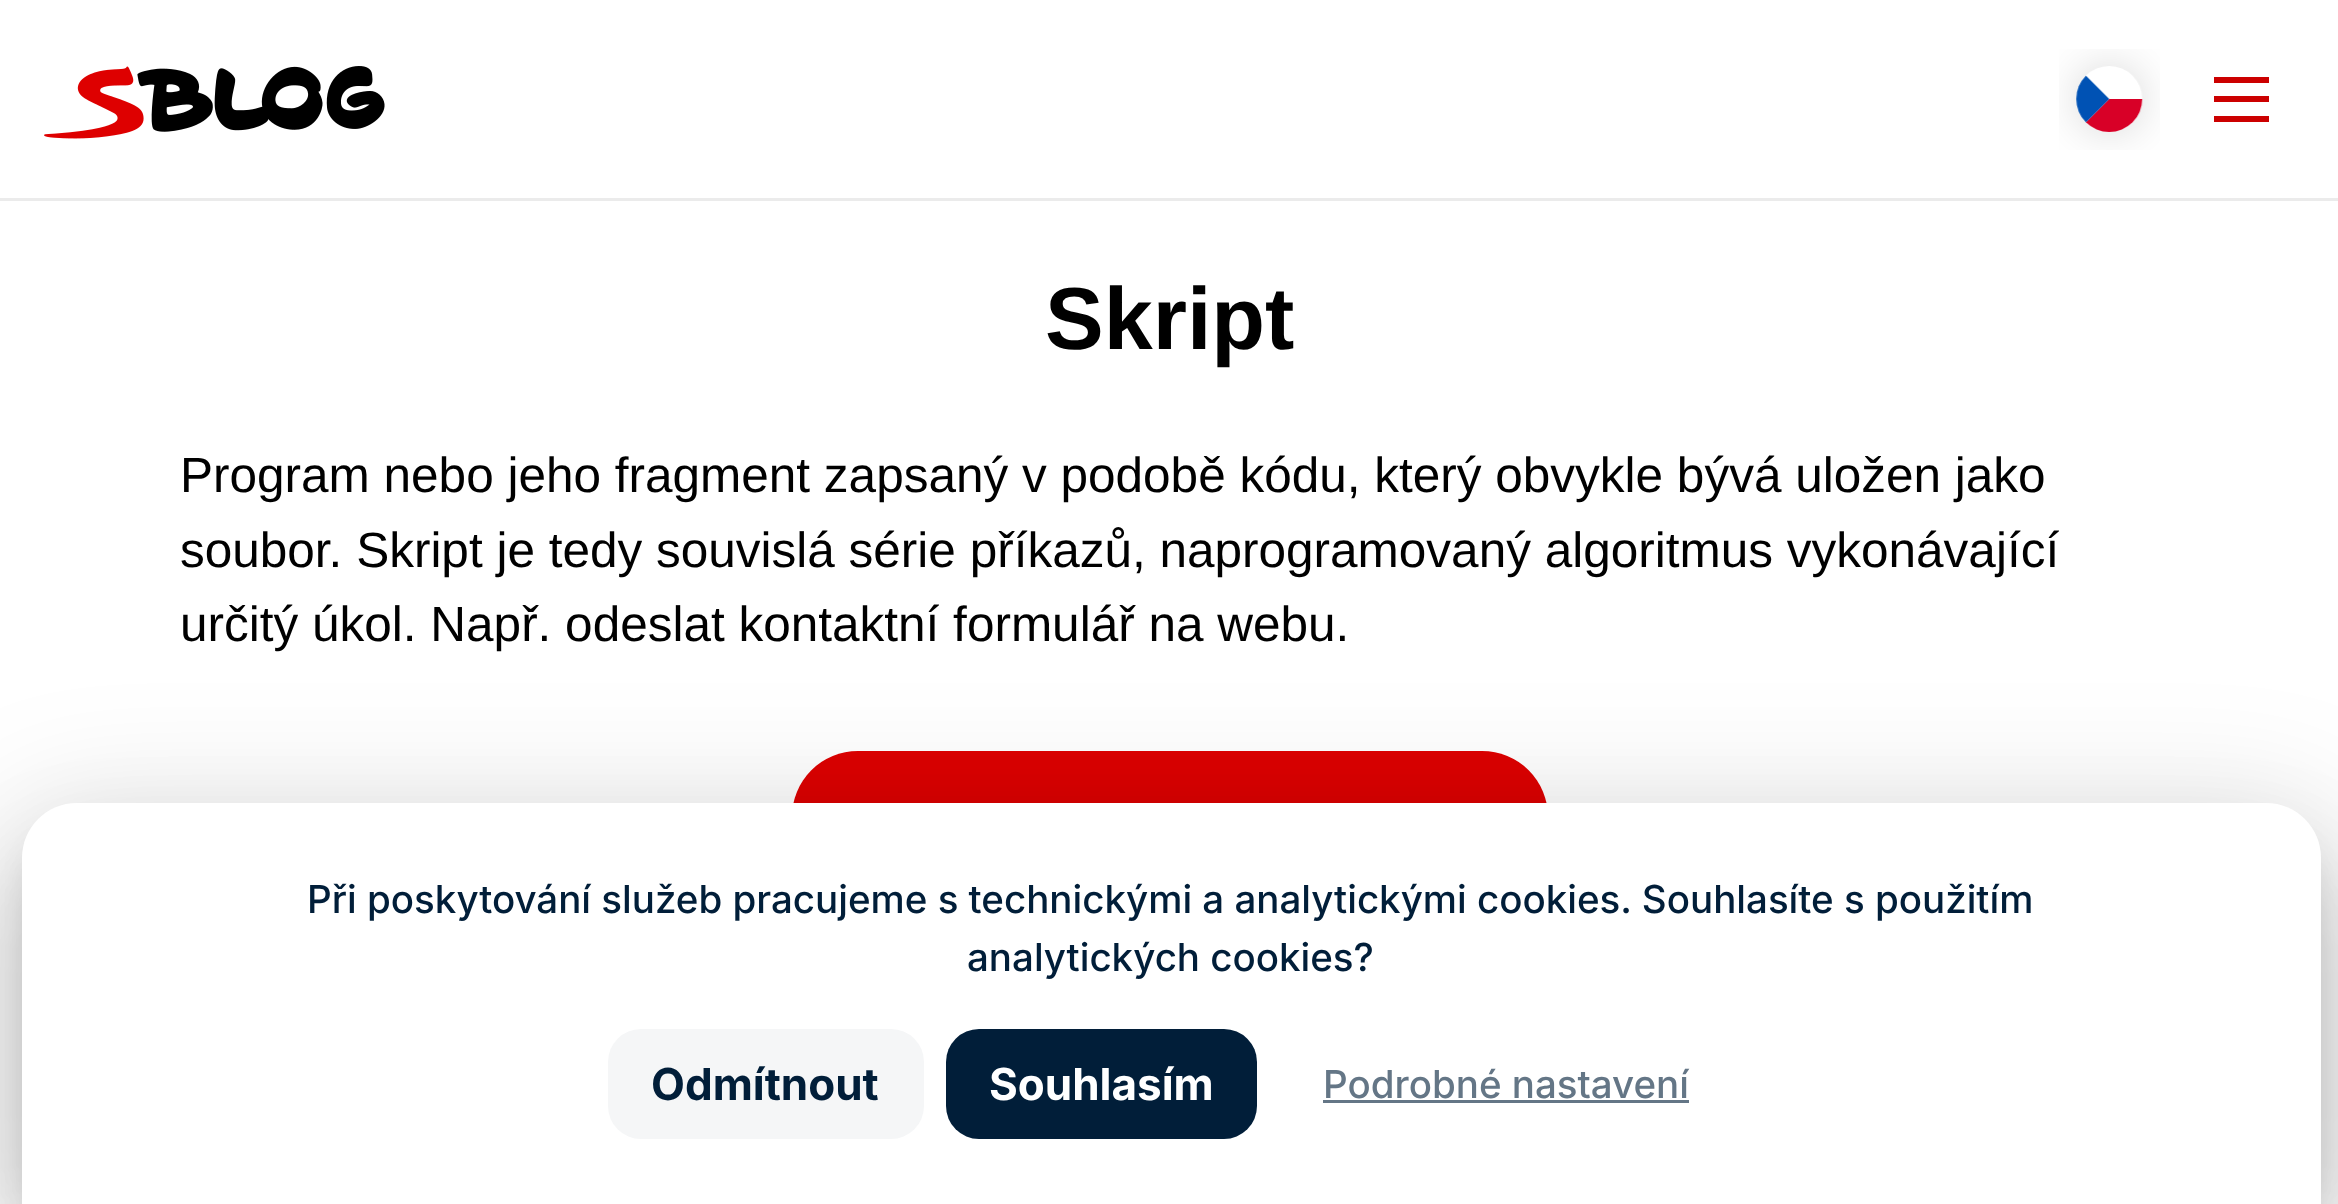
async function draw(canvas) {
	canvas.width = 2338;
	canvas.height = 1204;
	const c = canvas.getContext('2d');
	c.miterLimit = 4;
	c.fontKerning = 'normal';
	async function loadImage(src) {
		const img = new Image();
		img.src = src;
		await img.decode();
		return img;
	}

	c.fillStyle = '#fff';
	c.fillRect(0, 0, 2338, 1204);
	c.fillStyle = '#ebebeb';
	c.fillRect(0, 198, 2338, 3);
	c.drawImage(await loadImage('img1.png'), 44, 66, 341, 73);
	c.drawImage(await loadImage('img2.png'), 2059, 49, 101, 101);
	for (const [x, y, w, h, color] of [
		[2214, 77, 55, 6, '#c00'],
		[2214, 96, 55, 6, '#c00'],
		[2214, 116, 55, 6, '#c00'],
	]) {
		c.fillStyle = color;
		c.fillRect(x, y, w, h);
	}
	c.font = 'bold 88px Liberation Sans';
	c.fillStyle = '#000';
	c.fillText('Skript', 1045, 349);
	c.font = '49.5px Liberation Sans';
	for (const [text, x, y] of [
		['Program nebo jeho fragment zapsaný v podobě kódu, který obvykle bývá uložen jako', 180, 492],
		['soubor. Skript je tedy souvislá série příkazů, naprogramovaný algoritmus vykonávající', 180, 567],
		['určitý úkol. Např. odeslat kontaktní formulář na webu.', 180, 641],
	]) {
		c.fillText(text, x, y);
	}
	c.fillStyle = '#de0000';
	c.beginPath();
	c.roundRect(792, 751, 756, 146, 66);
	c.fill();
	c.fillStyle = '#00000033';
	c.filter = 'blur(20.5px)';
	c.beginPath();
	c.roundRect(41, 853, 2261, 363, 36);
	c.fill();
	c.filter = 'none';
	c.fillStyle = '#0000001f';
	c.filter = 'blur(63px)';
	c.beginPath();
	c.roundRect(0, 806, 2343, 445, 77);
	c.fill();
	c.filter = 'none';
	c.fillStyle = '#00000024';
	c.filter = 'blur(52px)';
	c.beginPath();
	c.roundRect(14, 861, 2315, 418, 63);
	c.fill();
	c.filter = 'none';
	c.fillStyle = '#fff';
	c.beginPath();
	c.moveTo(77, 803);
	c.lineTo(2266, 803);
	c.bezierCurveTo(2296.5, 803, 2321, 827.5, 2321, 858);
	c.lineTo(2321, 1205);
	c.lineTo(22, 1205);
	c.lineTo(22, 858);
	c.bezierCurveTo(22, 827.5, 46.5, 803, 77, 803);
	c.closePath();
	c.fill();
	c.font = '500 38.5px Inter';
	c.fillStyle = '#011e39';
	c.fillText('Při poskytování služeb pracujeme s technickými a analytickými cookies. Souhlasíte s použitím', 307, 913);
	c.fillText('analytických cookies?', 967, 971);
	c.fillStyle = '#f5f6f7';
	c.beginPath();
	c.roundRect(608, 1029, 316, 110, 33);
	c.fill();
	c.font = 'bold 44px Inter';
	c.fillStyle = '#011e39';
	c.fillText('Odmítnout', 651, 1100);
	c.beginPath();
	c.roundRect(946, 1029, 311, 110, 33);
	c.fill();
	c.fillStyle = '#fff';
	c.fillText('Souhlasím', 989, 1100);
	c.font = '500 38.5px Inter';
	c.fillStyle = '#647686';
	c.fillText('Podrobné nastavení', 1323, 1098);
	c.fillRect(1323, 1100, 366, 3);
}

draw(document.querySelector('canvas'));
